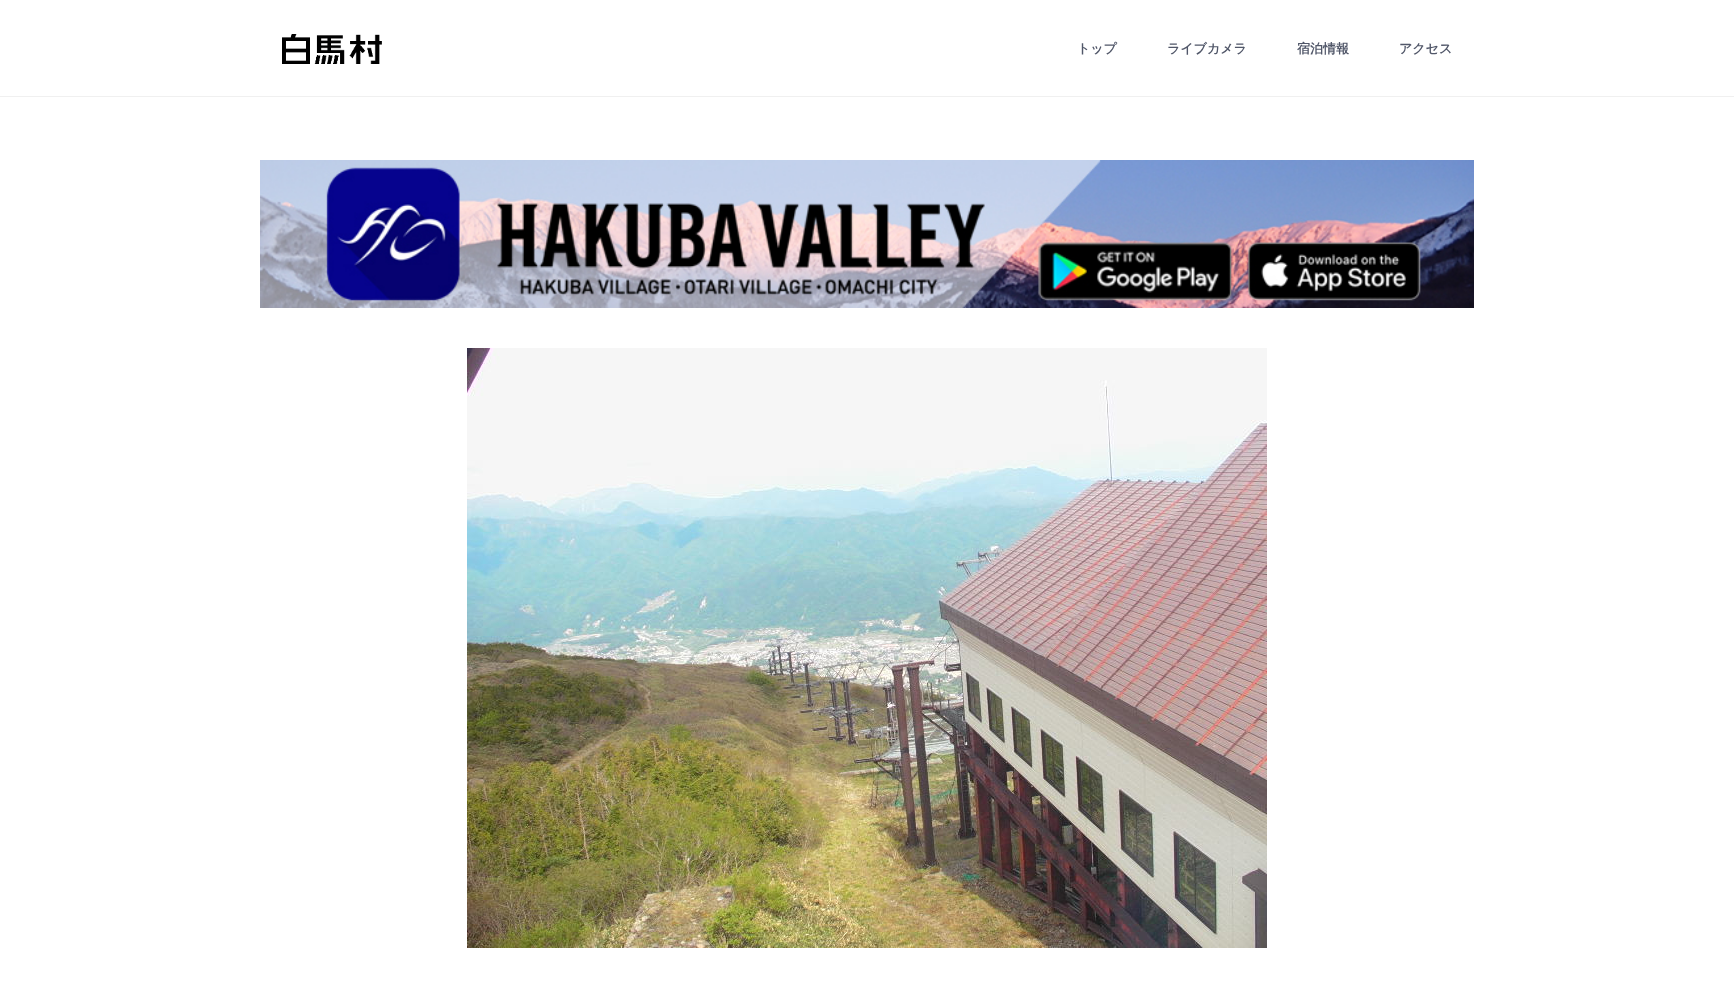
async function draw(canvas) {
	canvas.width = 1734;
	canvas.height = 998;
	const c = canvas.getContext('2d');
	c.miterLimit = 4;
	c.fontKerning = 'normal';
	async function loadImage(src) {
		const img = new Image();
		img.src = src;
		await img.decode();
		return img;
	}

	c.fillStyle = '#fff';
	c.fillRect(0, 0, 1734, 998);
	c.fillStyle = '#f0f0f0';
	c.fillRect(0, 96, 1734, 1);
	c.drawImage(await loadImage('img1.png'), 282, 34, 100, 30);
	c.font = 'bold 13px WenQuanYi Zen Hei';
	c.fillStyle = '#515769';
	for (const [text, x, y] of [
		['トップ', 1077, 53],
		['ライブカメラ', 1167, 53],
		['宿泊情報', 1297, 53],
		['アクセス', 1399, 53],
	]) {
		c.fillText(text, x, y);
	}
	c.drawImage(await loadImage('img2.png'), 260, 160, 1214, 148);
	c.drawImage(await loadImage('img3.png'), 467, 348, 800, 600);
}

draw(document.querySelector('canvas'));
